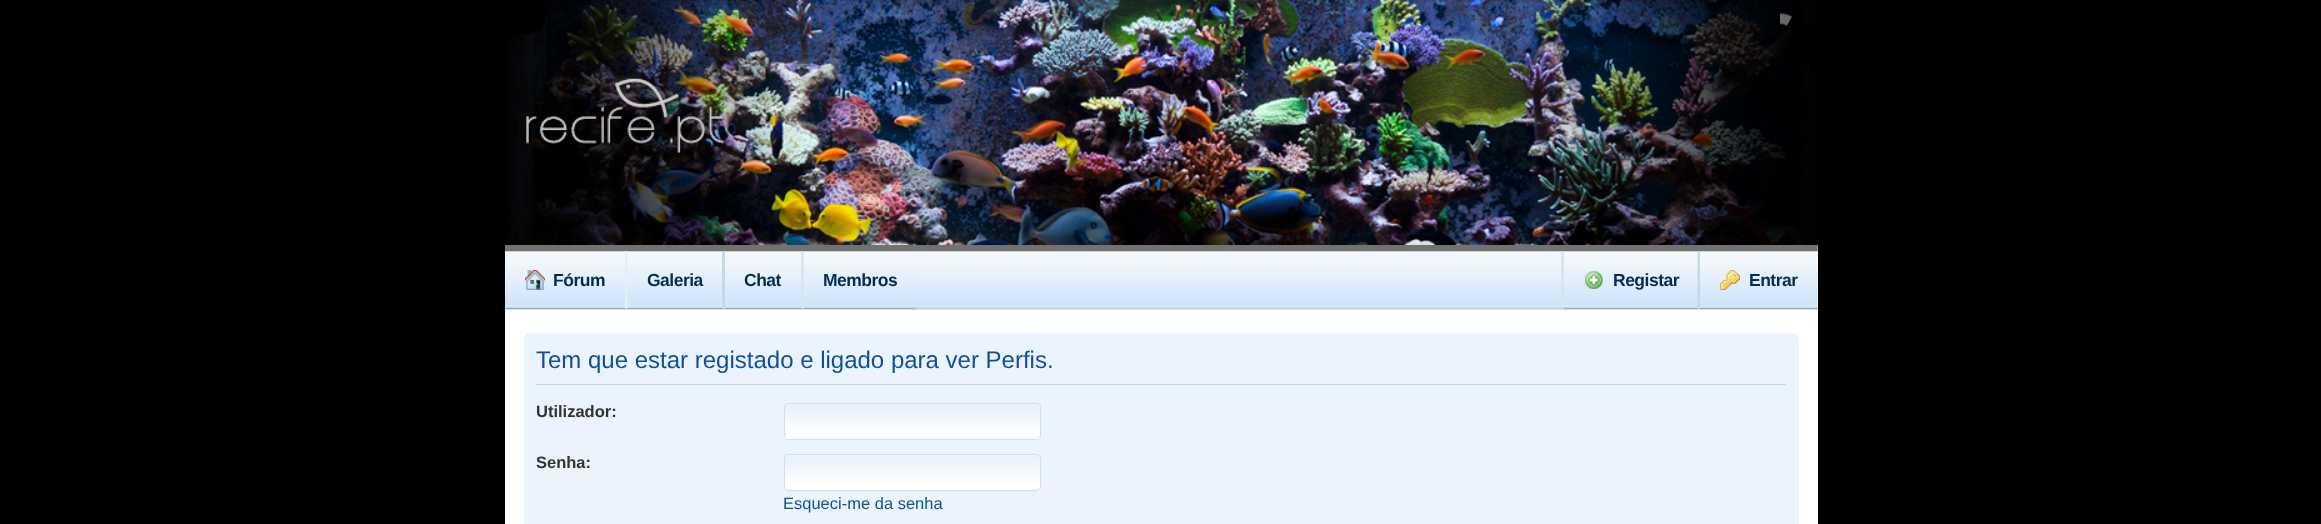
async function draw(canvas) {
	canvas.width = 2321;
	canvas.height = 524;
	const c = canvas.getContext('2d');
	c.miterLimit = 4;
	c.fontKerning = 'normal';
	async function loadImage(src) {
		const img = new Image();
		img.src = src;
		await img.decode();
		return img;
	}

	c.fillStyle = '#000';
	c.fillRect(0, 0, 2321, 524);
	c.fillStyle = '#fff';
	c.fillRect(505, 245, 1313, 279);
	c.drawImage(await loadImage('img1.png'), 507, 0, 1309, 245);
	c.drawImage(await loadImage('img2.png'), 1780, 13, 13, 13);
	c.drawImage(await loadImage('img3.png'), 505, 245, 1313, 65);
	c.fillStyle = '#94a8b9';
	c.fillRect(505, 308, 120, 1);
	c.drawImage(await loadImage('img4.png'), 525, 270, 20, 20);
	c.letterSpacing = '-0.5px';
	c.font = 'bold 17.5px Liberation Sans';
	c.fillStyle = '#082c51';
	c.fillText('Fórum', 553, 286);
	c.fillStyle = '#e6eef5';
	c.fillRect(625, 251, 3, 57);
	c.drawImage(await loadImage('img5.png'), 627, 251, 96, 58);
	c.fillStyle = '#082c51';
	c.fillText('Galeria', 647, 286);
	c.fillStyle = '#c5d7e8';
	c.fillRect(722, 251, 3, 57);
	c.drawImage(await loadImage('img6.png'), 725, 308, 77, 1);
	c.fillStyle = '#082c51';
	c.fillText('Chat', 744, 286);
	c.fillStyle = '#d8e4f0';
	c.fillRect(801, 251, 3, 57);
	c.drawImage(await loadImage('img7.png'), 803, 251, 114, 58);
	c.fillStyle = '#082c51';
	c.fillText('Membros', 823, 286);
	c.fillStyle = '#c5d7e8';
	c.fillRect(1697, 251, 3, 57);
	c.drawImage(await loadImage('img8.png'), 1563, 251, 135, 58);
	c.fillStyle = '#d8e4f0';
	c.fillRect(1561, 251, 3, 57);
	c.drawImage(await loadImage('img9.png'), 1584, 271, 19, 18);
	c.fillStyle = '#082c51';
	c.fillText('Registar', 1613, 286);
	c.drawImage(await loadImage('img10.png'), 1700, 245, 118, 64);
	c.drawImage(await loadImage('img11.png'), 1720, 270, 20, 20);
	c.fillText('Entrar', 1749, 286);
	c.fillStyle = '#ebf4fc';
	c.fillRect(524, 333, 1275, 191);
	c.drawImage(await loadImage('img12.png'), 524, 333, 6, 5);
	c.drawImage(await loadImage('img13.png'), 1793, 333, 6, 5);
	c.fillStyle = '#bad7f1';
	c.fillRect(536, 384, 1250, 1);
	c.letterSpacing = '0px';
	c.font = '24px Liberation Sans';
	c.fillStyle = '#115098';
	c.fillText('Tem que estar registado e ligado para ver Perfis.', 536, 368);
	c.font = 'bold 16.5px Liberation Sans';
	c.fillStyle = '#333';
	c.fillText('Utilizador:', 536, 417);
	c.fillStyle = '#fff';
	c.beginPath();
	c.roundRect(784, 403, 257, 37, 4);
	c.fill();
	c.drawImage(await loadImage('img14.png'), 784, 403, 257, 28);
	c.beginPath();
	c.roundRect(784.5, 403.5, 256, 36, 3.5);
	c.strokeStyle = '#cde0f1';
	c.stroke();
	c.fillStyle = '#333';
	c.fillText('Senha:', 536, 468);
	c.fillStyle = '#fff';
	c.beginPath();
	c.roundRect(784, 454, 257, 37, 4);
	c.fill();
	c.drawImage(await loadImage('img15.png'), 784, 455, 257, 27);
	c.beginPath();
	c.roundRect(784.5, 454.5, 256, 36, 3.5);
	c.stroke();
	c.font = '16.5px Liberation Sans';
	c.fillStyle = '#105289';
	c.fillText('Esqueci-me da senha', 783, 509);
}

draw(document.querySelector('canvas'));
